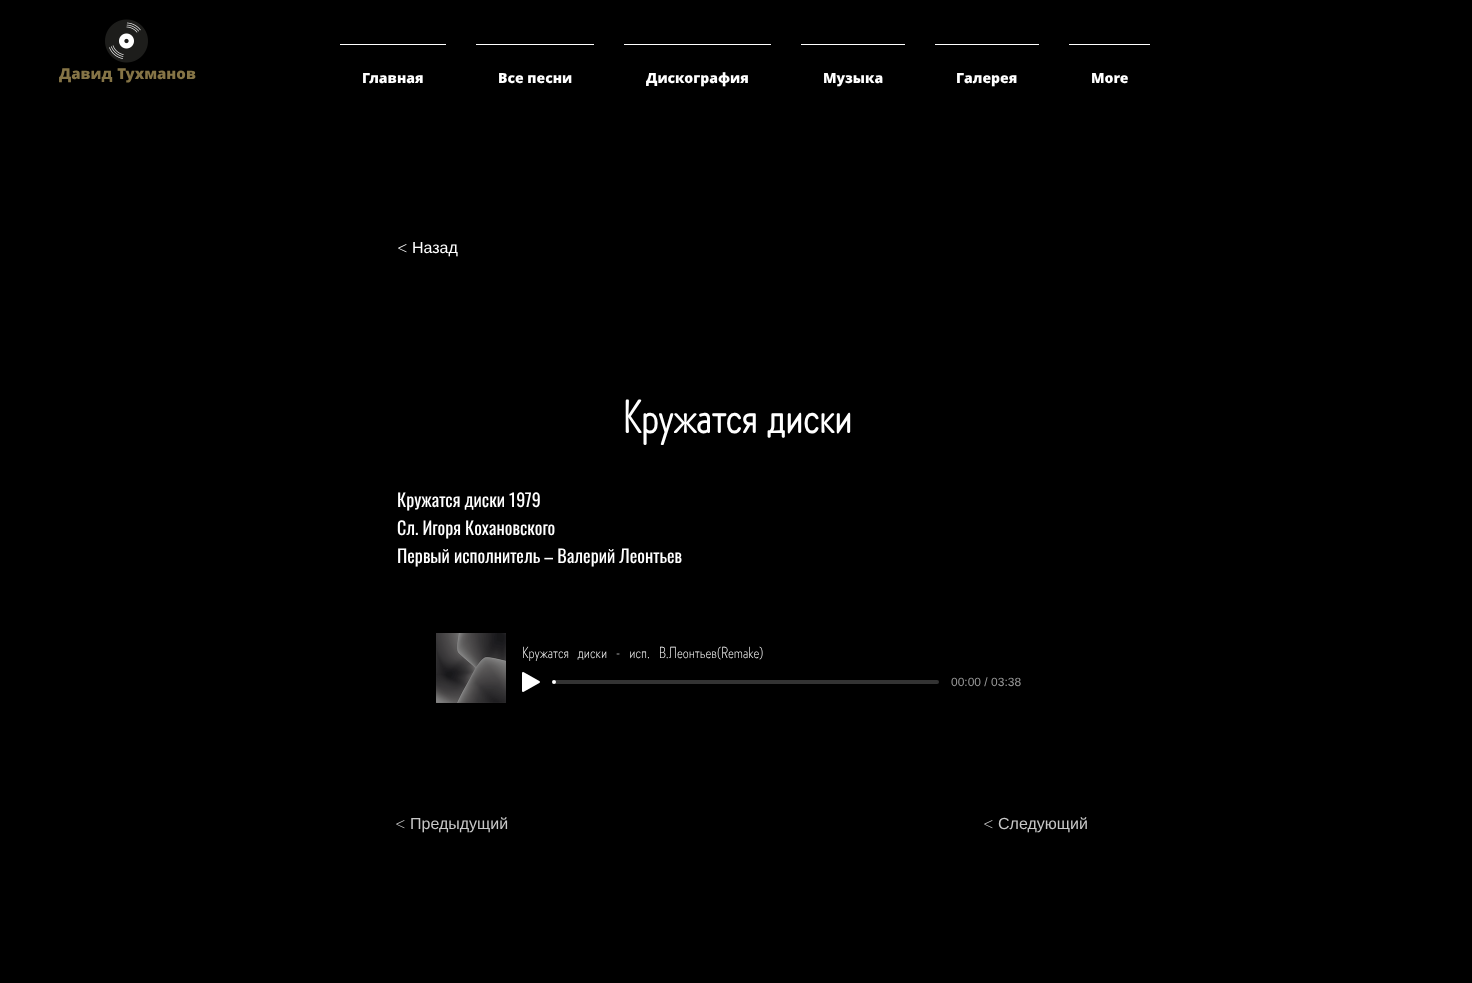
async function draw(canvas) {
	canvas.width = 1472;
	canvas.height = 983;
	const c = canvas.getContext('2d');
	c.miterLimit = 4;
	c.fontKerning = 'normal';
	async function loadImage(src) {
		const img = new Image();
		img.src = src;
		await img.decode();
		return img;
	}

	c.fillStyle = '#000';
	c.fillRect(0, 0, 1472, 983);
	c.drawImage(await loadImage('img1.png'), 105, 19, 43, 44);
	c.wordSpacing = '1px';
	c.font = '800 15px Open Sans';
	c.fillStyle = '#857446';
	c.fillText('Давид Тухманов', 59, 79);
	c.fillStyle = '#fff';
	c.fillRect(340, 44, 106, 1);
	c.wordSpacing = '0px';
	c.font = '800 14px Open Sans';
	c.fillText('Главная', 362, 83);
	c.fillRect(476, 44, 118, 1);
	c.fillText('Все песни', 498, 83);
	c.fillRect(624, 44, 147, 1);
	c.fillText('Дискография', 646, 83);
	c.fillRect(801, 44, 104, 1);
	c.fillText('Музыка', 823, 83);
	c.fillRect(935, 44, 104, 1);
	c.fillText('Галерея', 956, 83);
	c.fillRect(1069, 44, 81, 1);
	c.fillText('More', 1091, 83);
	c.font = '300 16px "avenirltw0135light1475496"';
	c.fillText('<', 397, 253);
	c.font = '16px Liberation Sans';
	c.fillText('Назад', 412, 253);
	c.wordSpacing = '1px';
	c.font = 'bold 46px "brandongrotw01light"';
	c.fillText('Кружатся диски', 622, 433);
	c.wordSpacing = '0px';
	c.font = '18px Oswald';
	for (const [text, x, y] of [
		['Кружатся диски 1979', 397, 507],
		['Сл. Игоря Кохановского', 397, 535],
		['Первый исполнитель – Валерий Леонтьев', 397, 563],
	]) {
		c.fillText(text, x, y);
	}
	c.drawImage(await loadImage('img2.png'), 436, 633, 70, 70);
	c.save();
	c.beginPath();
	c.rect(522, 645, 241, 16);
	c.clip();
	c.wordSpacing = '5.5px';
	c.font = '300 16px "brandongrotw01light"';
	c.fillText('Кружатся диски - исп. В.Леонтьев(Remake)', 522, 658);
	c.restore();
	c.drawImage(await loadImage('img3.png'), 522, 672, 18, 20);
	c.fillStyle = '#333';
	c.beginPath();
	c.roundRect(554, 680, 385, 4, 2);
	c.fill();
	c.fillStyle = '#fff';
	c.beginPath();
	c.arc(554, 682, 2, 0, 2 * Math.PI);
	c.fill();
	c.font = '12px Liberation Sans';
	c.fillStyle = '#999';
	c.fillText('00:00 / 03:38', 951, 686);
	c.font = '300 16px "avenirltw0135light1475496"';
	c.fillStyle = '#c7c7c7';
	c.fillText('<', 395, 829);
	c.font = '16px Liberation Sans';
	c.fillText('Предыдущий', 410, 829);
	c.font = '300 16px "avenirltw0135light1475496"';
	c.fillText('<', 983, 829);
	c.font = '16px Liberation Sans';
	c.fillText('Следующий', 998, 829);
}

draw(document.querySelector('canvas'));
